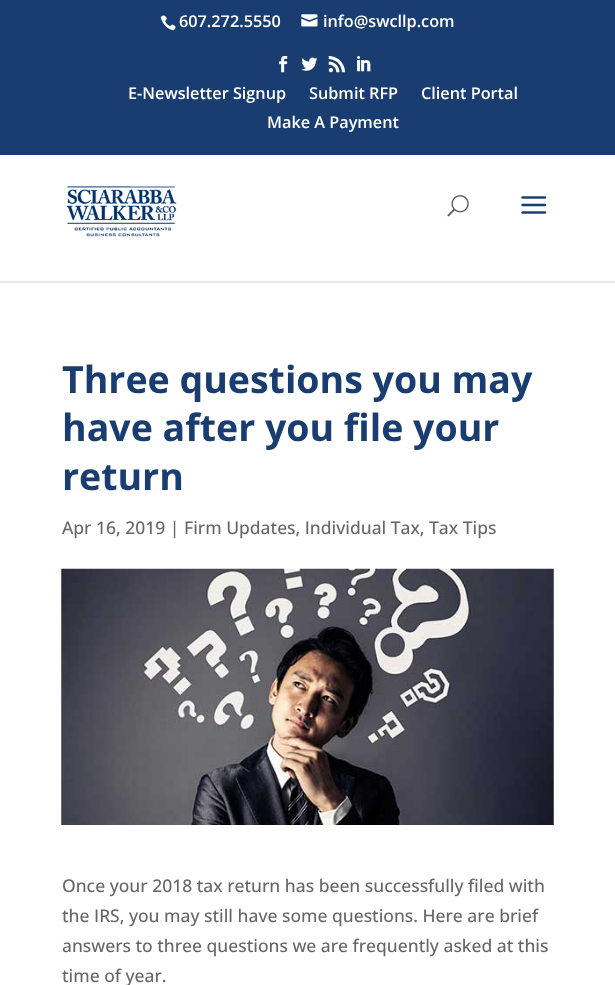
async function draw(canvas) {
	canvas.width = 615;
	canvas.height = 985;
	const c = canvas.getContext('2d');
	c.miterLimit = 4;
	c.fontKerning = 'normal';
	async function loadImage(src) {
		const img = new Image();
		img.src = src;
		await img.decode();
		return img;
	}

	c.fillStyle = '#fff';
	c.fillRect(0, 0, 615, 985);
	c.fillStyle = '#1a3d71';
	c.fillRect(0, 0, 615, 155);
	c.drawImage(await loadImage('img1.png'), 160, 15, 16, 16);
	c.font = '600 16.25px Open Sans';
	c.fillStyle = '#fff';
	c.fillText('607.272.5550', 179, 27);
	c.drawImage(await loadImage('img2.png'), 301, 14, 17, 13);
	c.fillText('info@swcllp.com', 323, 27);
	c.drawImage(await loadImage('img3.png'), 279, 56, 9, 17);
	c.drawImage(await loadImage('img4.png'), 301, 57, 17, 14);
	c.drawImage(await loadImage('img5.png'), 328, 56, 17, 17);
	c.drawImage(await loadImage('img6.png'), 357, 56, 14, 16);
	for (const [text, x, y] of [
		['E-Newsletter Signup', 128, 99],
		['Submit RFP', 309, 99],
		['Client Portal', 421, 99],
		['Make A Payment', 267, 128],
	]) {
		c.fillText(text, x, y);
	}
	c.fillStyle = '#e6e6e6';
	c.fillRect(0, 281, 615, 2);
	c.drawImage(await loadImage('img7.png'), 66, 186, 111, 51);
	c.drawImage(await loadImage('img8.png'), 447, 195, 22, 22);
	c.drawImage(await loadImage('img9.png'), 521, 196, 26, 18);
	c.font = 'bold 37.5px Open Sans';
	c.fillStyle = '#1a3d71';
	for (const [text, x, y] of [
		['Three questions you may', 62, 393],
		['have after you file your', 62, 441],
		['return', 62, 490],
	]) {
		c.fillText(text, x, y);
	}
	c.font = '500 17.5px Open Sans';
	c.fillStyle = '#666';
	c.fillText('Apr 16, 2019 | Firm Updates, Individual Tax, Tax Tips', 62, 534);
	c.drawImage(await loadImage('img10.png'), 61, 568, 493, 257);
	for (const [text, x, y] of [
		['Once your 2018 tax return has been successfully filed with', 62, 892],
		['the IRS, you may still have some questions. Here are brief', 62, 922],
		['answers to three questions we are frequently asked at this', 62, 952],
		['time of year.', 62, 982],
	]) {
		c.fillText(text, x, y);
	}
}

draw(document.querySelector('canvas'));
